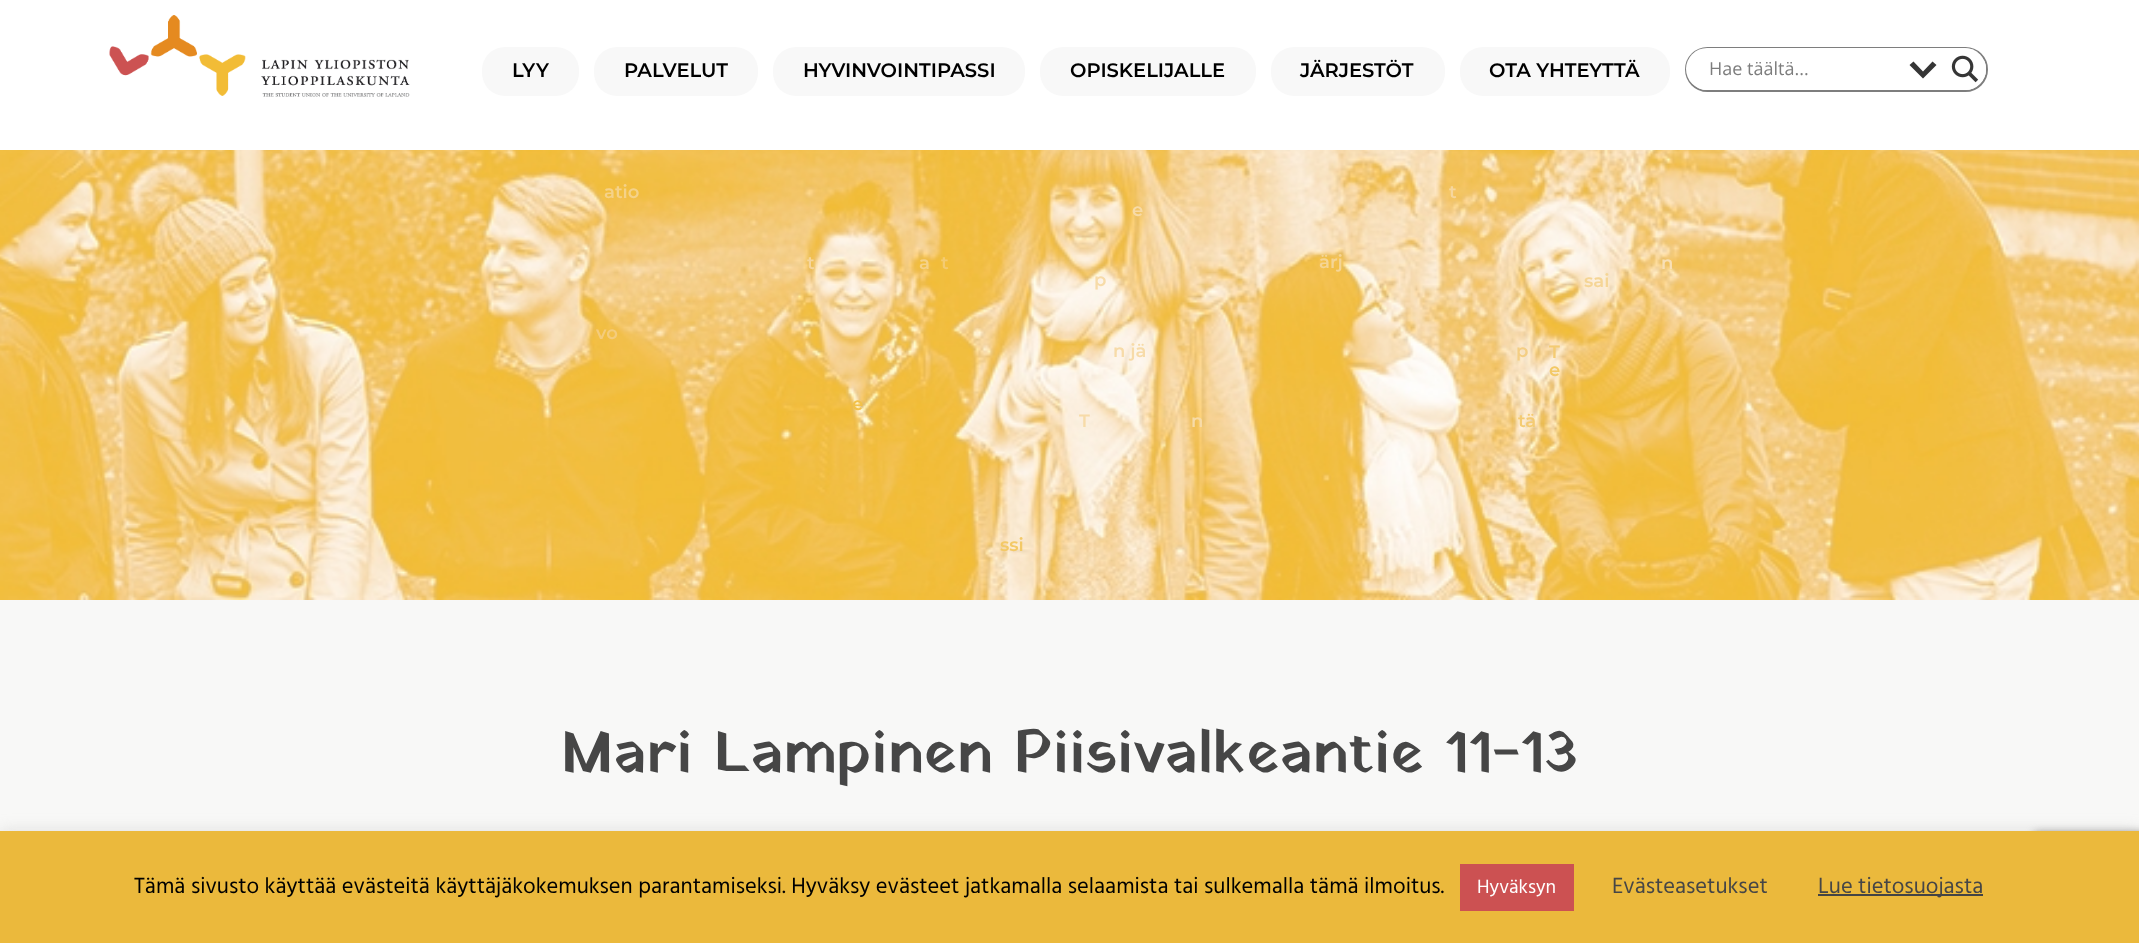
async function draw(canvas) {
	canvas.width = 2139;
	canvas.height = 943;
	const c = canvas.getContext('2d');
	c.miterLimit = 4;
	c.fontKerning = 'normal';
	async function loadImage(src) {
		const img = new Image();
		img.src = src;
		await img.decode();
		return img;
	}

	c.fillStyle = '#f8f8f7';
	c.fillRect(0, 0, 2139, 943);
	c.fillStyle = '#fff';
	c.fillRect(0, 0, 2139, 150);
	c.drawImage(await loadImage('img1.png'), 109, 15, 301, 82);
	c.fillStyle = '#f8f8f8';
	c.beginPath();
	c.roundRect(1271, 47, 174, 49, 23);
	c.fill();
	c.font = '100 19.5px Montserrat';
	c.fillStyle = '#000';
	c.fillText('JÄRJESTÖT', 1300, 77);
	c.drawImage(await loadImage('img3.png'), 0, 150, 2139, 450);
	c.font = '100 18px Montserrat';
	c.fillStyle = '#f6d69d';
	c.fillText('t', 1449, 198);
	c.fillStyle = '#f5d595';
	c.fillText('ärj', 1319, 268);
	c.fillStyle = '#f8e0b6';
	c.fillText('n', 1661, 269);
	c.fillStyle = '#f5d595';
	c.fillText('sai', 1584, 287);
	c.fillStyle = '#f4cb72';
	c.fillText('T', 1549, 358);
	c.fillStyle = '#f3c966';
	c.fillText('e', 1549, 376);
	c.fillStyle = '#f8f8f8';
	c.beginPath();
	c.roundRect(482, 47, 97, 49, 23);
	c.fill();
	c.font = '100 19.5px Montserrat';
	c.fillStyle = '#000';
	c.fillText('LYY', 512, 77);
	c.font = '100 18px Montserrat';
	c.fillStyle = '#f5d289';
	c.fillText('atio', 604, 198);
	c.fillStyle = '#f4cc7c';
	c.fillText('vo', 596, 339);
	c.fillStyle = '#f6d69d';
	c.fillText('t', 807, 269);
	c.fillStyle = '#f2c149';
	c.fillText('e', 852, 410);
	c.fillStyle = '#f8f8f8';
	c.beginPath();
	c.roundRect(1460, 47, 210, 49, 23);
	c.fill();
	c.font = '100 19.5px Montserrat';
	c.fillStyle = '#000';
	c.fillText('OTA YHTEYTTÄ', 1489, 77);
	c.font = '100 18px Montserrat';
	c.fillStyle = '#f4ce83';
	c.fillText('p', 1516, 357);
	c.fillStyle = '#f4cb72';
	c.fillText('tä', 1518, 427);
	c.beginPath();
	c.roundRect(1686, 48, 301, 43, 21.5);
	c.strokeStyle = '#7e7e7e';
	c.lineWidth = 2;
	c.stroke();
	c.fillStyle = '#fff';
	c.beginPath();
	c.roundRect(1686, 48, 300, 42, 21);
	c.fill();
	c.font = '18px Open Sans';
	c.fillStyle = '#7d7d7d';
	c.fillText('Hae täältä...', 1709, 75);
	c.fillStyle = '#363636';
	c.beginPath();
	c.moveTo(1932.5, 61.5);
	c.lineTo(1936.5, 65);
	c.lineTo(1923, 78.5);
	c.lineTo(1909.5, 65);
	c.lineTo(1913.5, 61.5);
	c.lineTo(1923, 71.5);
	c.closePath();
	c.fill();
	c.save();
	c.beginPath();
	c.rect(1944, 48, 42, 42);
	c.clip();
	c.fillStyle = '#ffffffa3';
	c.beginPath();
	c.moveTo(1942, 50);
	c.lineTo(1942, 90);
	c.lineTo(1796, 90);
	c.lineTo(1796, 48);
	c.lineTo(1965, 48);
	c.bezierCurveTo(1968, 48, 1971, 49, 1974, 50);
	c.closePath();
	c.moveTo(1984, 78);
	c.bezierCurveTo(1987, 72, 1987, 66, 1984, 60);
	c.closePath();
	c.fill('evenodd');
	c.restore();
	c.drawImage(await loadImage('img2.png'), 1951, 55, 28, 28);
	c.fillStyle = '#f8f8f8';
	c.beginPath();
	c.roundRect(594, 47, 164, 49, 23);
	c.fill();
	c.font = '100 19.5px Montserrat';
	c.fillStyle = '#000';
	c.fillText('PALVELUT', 624, 77);
	c.font = '100 18px Montserrat';
	c.fillStyle = '#f4cb72';
	c.fillText('t', 941, 269);
	c.fillStyle = '#f5d289';
	c.fillText('a', 919, 269);
	c.fillStyle = '#f3c966';
	c.fillText('ssi', 1000, 551);
	c.fillStyle = '#f8f8f8';
	c.beginPath();
	c.roundRect(773, 47, 252, 49, 23);
	c.fill();
	c.font = '100 19.5px Montserrat';
	c.fillStyle = '#000';
	c.fillText('HYVINVOINTIPASSI', 803, 77);
	c.fillStyle = '#f8f8f8';
	c.beginPath();
	c.roundRect(1040, 47, 216, 49, 23);
	c.fill();
	c.fillStyle = '#000';
	c.fillText('OPISKELIJALLE', 1070, 77);
	c.font = '100 18px Montserrat';
	c.fillStyle = '#f7dba8';
	for (const [text, x, y] of [
		['e', 1132, 216],
		['p', 1094, 286],
		['n jä', 1113, 357],
		['T', 1079, 427],
		['n', 1191, 427],
	]) {
		c.fillText(text, x, y);
	}
	c.font = '60px Yatra One';
	c.fillStyle = '#464646';
	c.fillText('Mari Lampinen Piisivalkeantie 11-13', 561, 771);
	c.fillStyle = '#acabab4d';
	c.filter = 'blur(7.5px)';
	c.beginPath();
	c.rect(0, 830, 2139, 112);
	c.fill();
	c.filter = 'none';
	c.fillStyle = '#808080';
	c.filter = 'blur(4px)';
	c.beginPath();
	c.roundRect(2034, 833, 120, 90, 3);
	c.fill();
	c.filter = 'none';
	c.fillStyle = '#ebb93c';
	c.fillRect(0, 831, 2139, 112);
	c.font = '22.5px Hind';
	c.fillStyle = '#000';
	c.fillText('Tämä sivusto käyttää evästeitä käyttäjäkokemuksen parantamiseksi. Hyväksy evästeet jatkamalla selaamista tai sulkemalla tämä ilmoitus.', 134, 893);
	c.fillStyle = '#cc5152';
	c.fillRect(1460, 864, 114, 47);
	c.font = '19.5px Hind';
	c.fillStyle = '#fff';
	c.fillText('Hyväksyn', 1477, 893);
	c.font = '22.5px Hind';
	c.fillStyle = '#464646';
	c.fillText('Evästeasetukset', 1612, 893);
	c.fillStyle = '#444';
	c.fillRect(1818, 894, 165, 2);
	c.fillStyle = '#464646';
	c.fillText('Lue tietosuojasta', 1818, 893);
}

draw(document.querySelector('canvas'));
